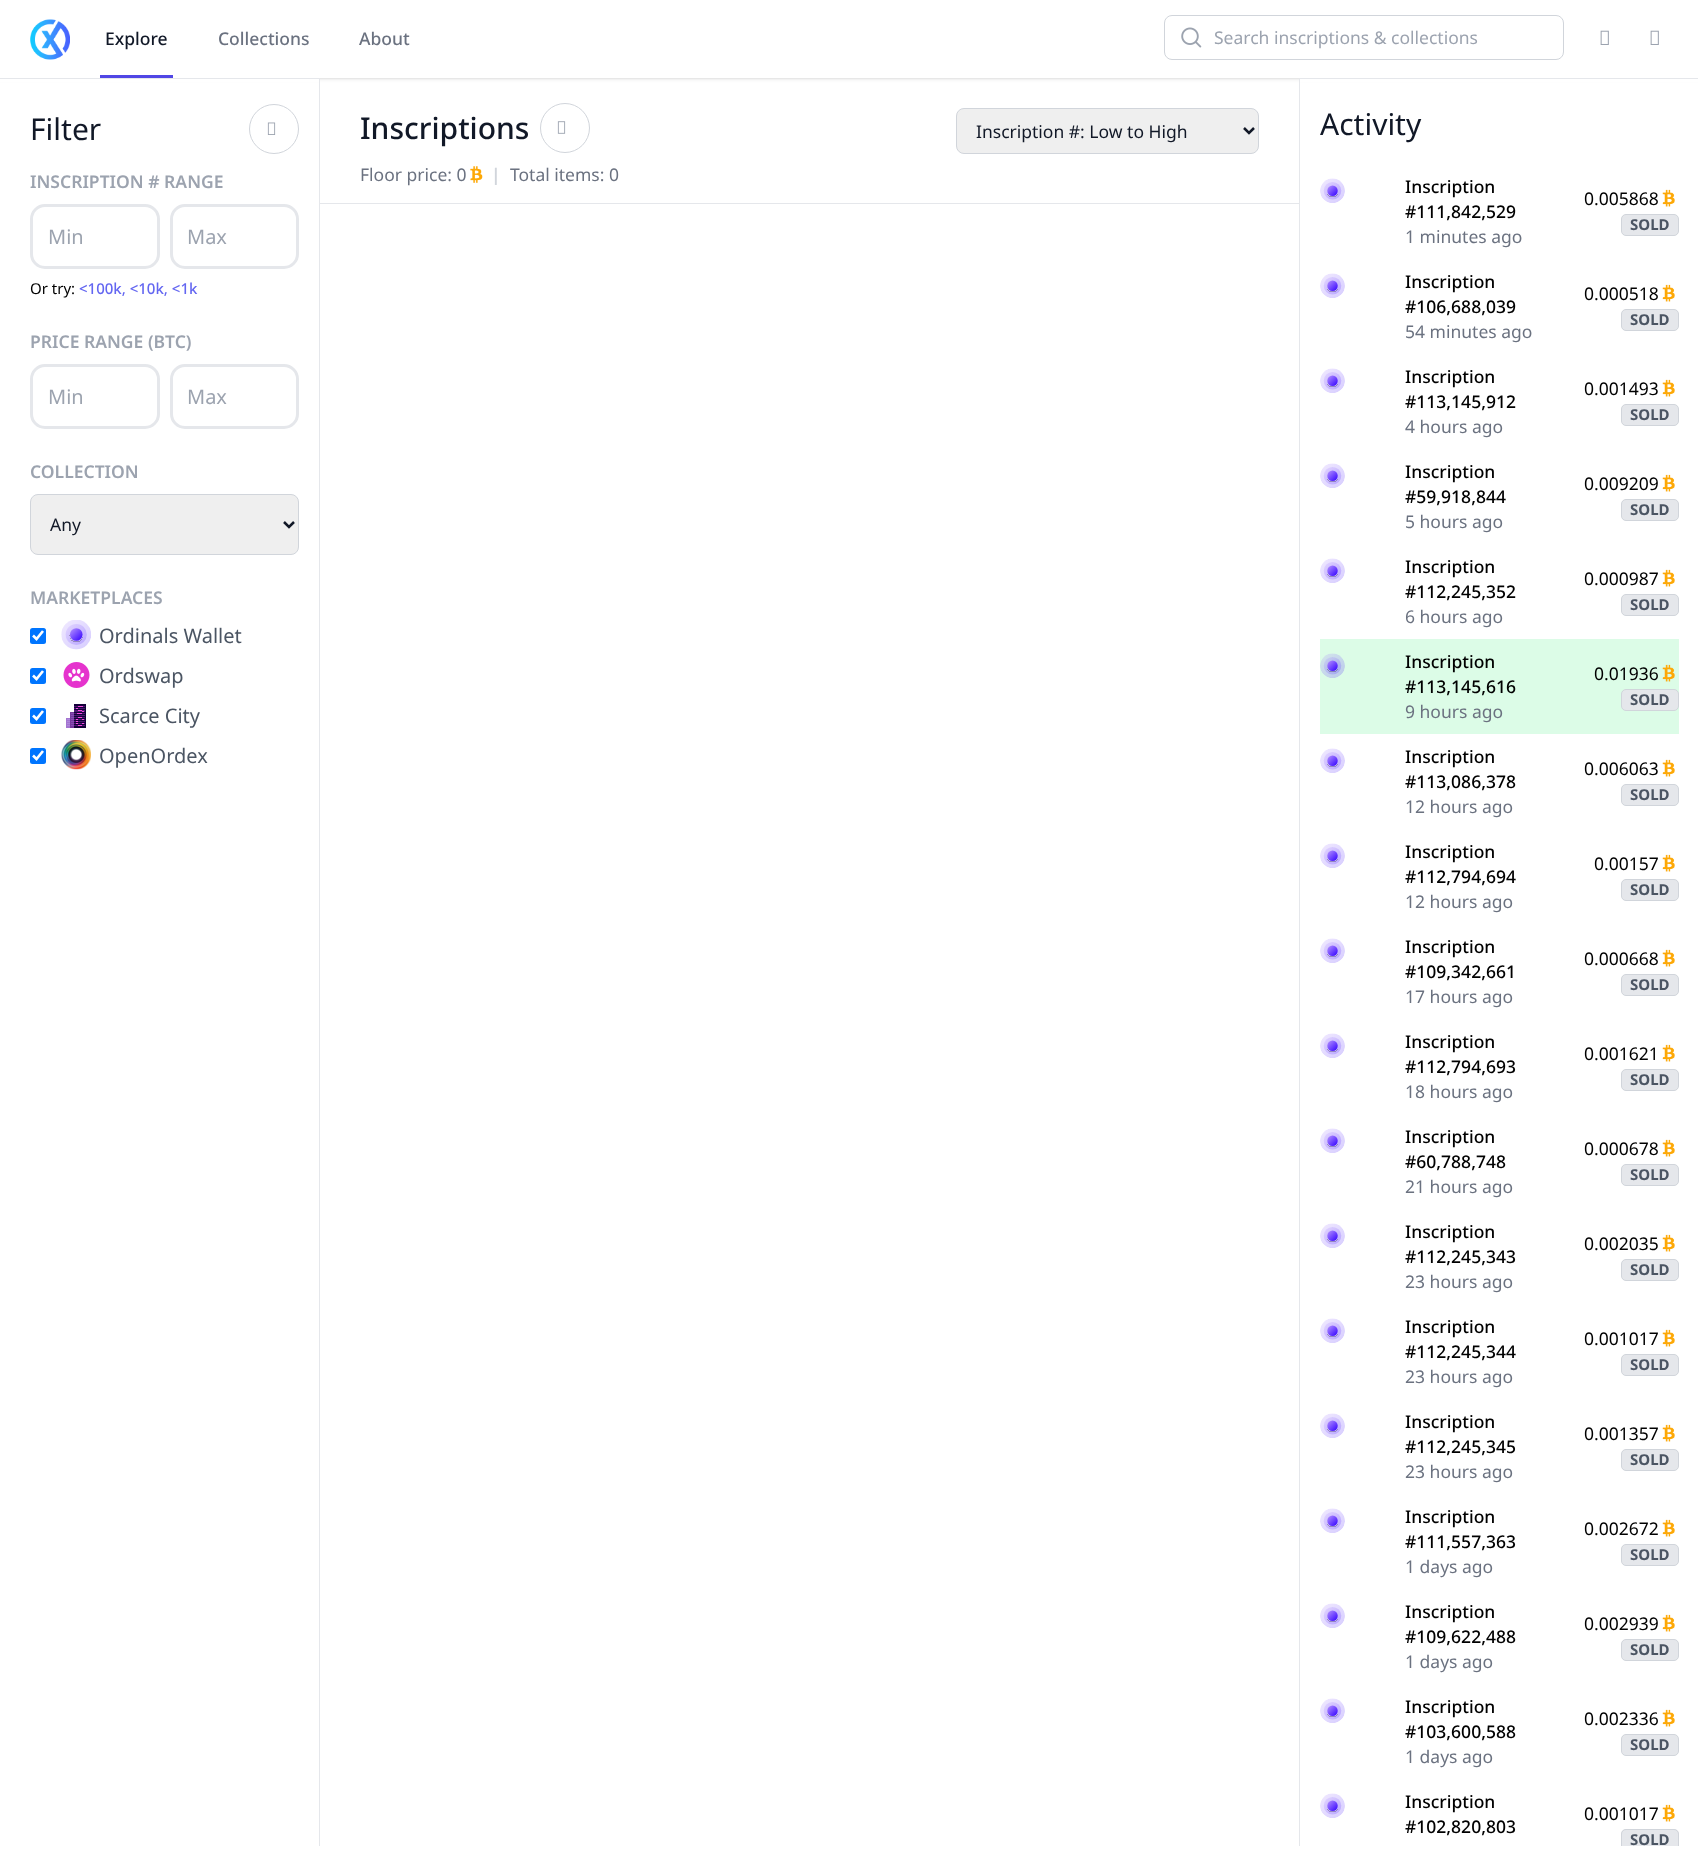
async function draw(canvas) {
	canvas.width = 1698;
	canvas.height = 1850;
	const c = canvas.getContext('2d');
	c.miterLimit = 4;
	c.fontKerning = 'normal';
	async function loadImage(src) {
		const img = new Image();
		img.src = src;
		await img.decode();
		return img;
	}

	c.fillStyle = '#fff';
	c.fillRect(0, 0, 1698, 1850);
	c.fillStyle = '#0000001a';
	c.filter = 'blur(1px)';
	c.beginPath();
	c.rect(1, 0, 1697, 78);
	c.fill();
	c.filter = 'none';
	c.filter = 'blur(2px)';
	c.beginPath();
	c.rect(0, -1, 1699, 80);
	c.fill();
	c.filter = 'none';
	c.fillStyle = '#fff';
	c.fillRect(0, 0, 1698, 78);
	c.drawImage(await loadImage('img1.png'), 30, 19, 40, 41);
	c.fillStyle = '#5046e5';
	c.fillRect(100, 75, 73, 3);
	c.font = '500 17.5px Noto Sans';
	c.fillStyle = '#111827';
	c.fillText('Explore', 105, 45);
	c.fillStyle = '#6b7280';
	c.fillText('Collections', 218, 45);
	c.fillText('About', 359, 45);
	c.beginPath();
	c.roundRect(1164.5, 15.5, 399, 44, 7.5);
	c.strokeStyle = '#d1d5db';
	c.stroke();
	c.drawImage(await loadImage('img2.png'), 1181, 27, 21, 21);
	c.font = '17.5px Noto Sans';
	c.fillStyle = '#9ca3af';
	c.fillText('Search inscriptions & collections', 1214, 44);
	c.drawImage(await loadImage('img3.png'), 1600, 30, 9, 15);
	c.drawImage(await loadImage('img3.png'), 1650, 30, 9, 15);
	for (const [x, y, w, h, color] of [
		[0, 79, 319, 3, '#fff'],
		[0, 78, 320, 1, '#e5e7eb'],
		[319, 78, 1, 1768, '#e5e7eb'],
	]) {
		c.fillStyle = color;
		c.fillRect(x, y, w, h);
	}
	c.font = '30px Noto Sans';
	c.fillStyle = '#111827';
	c.fillText('Filter', 30, 140);
	c.beginPath();
	c.arc(274, 129, 24.5, 0, 2 * Math.PI);
	c.stroke();
	c.drawImage(await loadImage('img4.png'), 267, 122, 9, 13);
	c.font = '600 17.5px Noto Sans';
	c.fillStyle = '#9ca3af';
	c.fillText('INSCRIPTION # RANGE', 30, 188);
	c.beginPath();
	c.roundRect(31.5, 205.5, 127, 62, 13.5);
	c.strokeStyle = '#e5e7eb';
	c.lineWidth = 3;
	c.stroke();
	c.font = '20px Noto Sans';
	c.fillText('Min', 48, 244);
	c.beginPath();
	c.roundRect(171.5, 205.5, 126, 62, 13.5);
	c.stroke();
	c.fillText('Max', 187, 244);
	c.font = '15px Noto Sans';
	c.fillStyle = '#000';
	c.fillText('Or try:', 30, 294);
	c.font = '500 15px Noto Sans';
	c.fillStyle = '#6366f1';
	c.fillText('<100k, <10k, <1k', 79, 294);
	c.font = '600 17.5px Noto Sans';
	c.fillStyle = '#9ca3af';
	c.fillText('PRICE RANGE (BTC)', 30, 348);
	c.beginPath();
	c.roundRect(31.5, 365.5, 127, 62, 13.5);
	c.stroke();
	c.font = '20px Noto Sans';
	c.fillText('Min', 48, 404);
	c.beginPath();
	c.roundRect(171.5, 365.5, 126, 62, 13.5);
	c.stroke();
	c.fillText('Max', 187, 404);
	c.font = '600 17.5px Noto Sans';
	c.fillText('COLLECTION', 30, 478);
	c.fillStyle = '#efefef';
	c.beginPath();
	c.roundRect(30.5, 494.5, 268, 60, 7.5);
	c.fill();
	c.strokeStyle = '#d1d5db';
	c.lineWidth = 1;
	c.stroke();
	c.beginPath();
	c.moveTo(284, 522);
	c.lineTo(289, 527);
	c.lineTo(294, 522);
	c.strokeStyle = '#111827';
	c.lineWidth = 2.5;
	c.stroke();
	c.font = '17.5px Noto Sans';
	c.fillStyle = '#111827';
	c.fillText('Any', 50, 531);
	c.font = '600 17.5px Noto Sans';
	c.fillStyle = '#9ca3af';
	c.fillText('MARKETPLACES', 30, 604);
	c.fillStyle = '#0075ff';
	c.beginPath();
	c.roundRect(30, 628, 16, 16, 2.5);
	c.fill();
	c.beginPath();
	c.moveTo(33, 635.5);
	c.lineTo(36.5, 639);
	c.lineTo(43, 631);
	c.strokeStyle = '#fff';
	c.lineWidth = 2.6;
	c.stroke();
	c.drawImage(await loadImage('img5.png'), 61, 620, 30, 30);
	c.font = '20px Noto Sans';
	c.fillStyle = '#4b5563';
	c.fillText('Ordinals Wallet', 99, 643);
	c.fillStyle = '#0075ff';
	c.beginPath();
	c.roundRect(30, 668, 16, 16, 2.5);
	c.fill();
	c.beginPath();
	c.moveTo(33, 675.5);
	c.lineTo(36.5, 679);
	c.lineTo(43, 671);
	c.stroke();
	c.drawImage(await loadImage('img6.png'), 63, 662, 27, 26);
	c.fillStyle = '#4b5563';
	c.fillText('Ordswap', 99, 683);
	c.fillStyle = '#0075ff';
	c.beginPath();
	c.roundRect(30, 708, 16, 16, 2.5);
	c.fill();
	c.beginPath();
	c.moveTo(33, 715.5);
	c.lineTo(36.5, 719);
	c.lineTo(43, 711);
	c.stroke();
	c.drawImage(await loadImage('img7.png'), 66, 704, 20, 24);
	c.fillStyle = '#4b5563';
	c.fillText('Scarce City', 99, 723);
	c.fillStyle = '#0075ff';
	c.beginPath();
	c.roundRect(30, 748, 16, 16, 2.5);
	c.fill();
	c.beginPath();
	c.moveTo(33, 755.5);
	c.lineTo(36.5, 759);
	c.lineTo(43, 751);
	c.stroke();
	c.drawImage(await loadImage('img8.png'), 61, 740, 30, 30);
	c.fillStyle = '#4b5563';
	c.fillText('OpenOrdex', 99, 763);
	c.fillStyle = '#e5e7eb';
	c.fillRect(320, 203, 979, 1);
	c.font = '500 30px Noto Sans';
	c.fillStyle = '#111827';
	c.fillText('Inscriptions', 360, 139);
	c.beginPath();
	c.arc(565, 128, 24.5, 0, 2 * Math.PI);
	c.strokeStyle = '#d1d5db';
	c.lineWidth = 1;
	c.stroke();
	c.drawImage(await loadImage('img9.png'), 557, 121, 9, 13);
	c.fillStyle = '#efefef';
	c.beginPath();
	c.roundRect(956.5, 108.5, 302, 45, 7.5);
	c.fill();
	c.stroke();
	c.beginPath();
	c.moveTo(1244, 128);
	c.lineTo(1249, 133);
	c.lineTo(1254, 128);
	c.strokeStyle = '#111827';
	c.lineWidth = 2.5;
	c.stroke();
	c.font = '17.5px Noto Sans';
	c.fillStyle = '#111827';
	c.fillText('Inscription #: Low to High', 976, 138);
	c.fillStyle = '#6b7280';
	c.fillText('Floor price: 0', 360, 181);
	c.drawImage(await loadImage('img10.png'), 470, 166, 13, 17);
	c.font = 'bold 17.5px Noto Sans';
	c.fillStyle = '#d1d5db';
	c.fillText('|', 491, 181);
	c.font = '17.5px Noto Sans';
	c.fillStyle = '#6b7280';
	c.fillText('Total items: 0', 510, 181);
	for (const [x, y, w, h, color] of [
		[1300, 79, 398, 3, '#fff'],
		[1299, 78, 399, 1, '#e5e7eb'],
		[1299, 78, 1, 1768, '#e5e7eb'],
	]) {
		c.fillStyle = color;
		c.fillRect(x, y, w, h);
	}
	c.font = '30px Noto Sans';
	c.fillStyle = '#111827';
	c.fillText('Activity', 1320, 135);
	c.drawImage(await loadImage('img11.png'), 1320, 178, 25, 25);
	c.font = '500 17.5px Noto Sans';
	c.fillStyle = '#000';
	c.fillText('Inscription', 1405, 193);
	c.fillText('#111,842,529', 1405, 218);
	c.font = '17.5px Noto Sans';
	c.fillStyle = '#6b7280';
	c.fillText('1 minutes ago', 1405, 243);
	c.fillStyle = '#000';
	c.fillText('0.005868', 1584, 205);
	c.drawImage(await loadImage('img12.png'), 1662, 189, 13, 18);
	c.fillStyle = '#e5e7eb';
	c.beginPath();
	c.roundRect(1621.5, 214.5, 57, 21, 4.5);
	c.fill();
	c.strokeStyle = '#d1d5db';
	c.lineWidth = 1;
	c.stroke();
	c.font = 'bold 15px Noto Sans';
	c.fillStyle = '#4b5563';
	c.fillText('SOLD', 1630, 230);
	c.drawImage(await loadImage('img13.png'), 1320, 273, 25, 25);
	c.font = '500 17.5px Noto Sans';
	c.fillStyle = '#000';
	c.fillText('Inscription', 1405, 288);
	c.fillText('#106,688,039', 1405, 313);
	c.font = '17.5px Noto Sans';
	c.fillStyle = '#6b7280';
	c.fillText('54 minutes ago', 1405, 338);
	c.fillStyle = '#000';
	c.fillText('0.000518', 1584, 300);
	c.drawImage(await loadImage('img14.png'), 1662, 284, 13, 18);
	c.fillStyle = '#e5e7eb';
	c.beginPath();
	c.roundRect(1621.5, 309.5, 57, 21, 4.5);
	c.fill();
	c.stroke();
	c.font = 'bold 15px Noto Sans';
	c.fillStyle = '#4b5563';
	c.fillText('SOLD', 1630, 325);
	c.drawImage(await loadImage('img11.png'), 1320, 368, 25, 25);
	c.font = '500 17.5px Noto Sans';
	c.fillStyle = '#000';
	c.fillText('Inscription', 1405, 383);
	c.fillText('#113,145,912', 1405, 408);
	c.font = '17.5px Noto Sans';
	c.fillStyle = '#6b7280';
	c.fillText('4 hours ago', 1405, 433);
	c.fillStyle = '#000';
	c.fillText('0.001493', 1584, 395);
	c.drawImage(await loadImage('img12.png'), 1662, 379, 13, 18);
	c.fillStyle = '#e5e7eb';
	c.beginPath();
	c.roundRect(1621.5, 404.5, 57, 21, 4.5);
	c.fill();
	c.stroke();
	c.font = 'bold 15px Noto Sans';
	c.fillStyle = '#4b5563';
	c.fillText('SOLD', 1630, 420);
	c.drawImage(await loadImage('img15.png'), 1320, 463, 25, 25);
	c.font = '500 17.5px Noto Sans';
	c.fillStyle = '#000';
	c.fillText('Inscription', 1405, 478);
	c.fillText('#59,918,844', 1405, 503);
	c.font = '17.5px Noto Sans';
	c.fillStyle = '#6b7280';
	c.fillText('5 hours ago', 1405, 528);
	c.fillStyle = '#000';
	c.fillText('0.009209', 1584, 490);
	c.drawImage(await loadImage('img12.png'), 1662, 474, 13, 18);
	c.fillStyle = '#e5e7eb';
	c.beginPath();
	c.roundRect(1621.5, 499.5, 57, 21, 4.5);
	c.fill();
	c.stroke();
	c.font = 'bold 15px Noto Sans';
	c.fillStyle = '#4b5563';
	c.fillText('SOLD', 1630, 515);
	c.drawImage(await loadImage('img11.png'), 1320, 558, 25, 25);
	c.font = '500 17.5px Noto Sans';
	c.fillStyle = '#000';
	c.fillText('Inscription', 1405, 573);
	c.fillText('#112,245,352', 1405, 598);
	c.font = '17.5px Noto Sans';
	c.fillStyle = '#6b7280';
	c.fillText('6 hours ago', 1405, 623);
	c.fillStyle = '#000';
	c.fillText('0.000987', 1584, 585);
	c.drawImage(await loadImage('img12.png'), 1662, 569, 13, 18);
	c.fillStyle = '#e5e7eb';
	c.beginPath();
	c.roundRect(1621.5, 594.5, 57, 21, 4.5);
	c.fill();
	c.stroke();
	c.font = 'bold 15px Noto Sans';
	c.fillStyle = '#4b5563';
	c.fillText('SOLD', 1630, 610);
	c.fillStyle = '#dcfce7';
	c.fillRect(1320, 639, 359, 95);
	c.drawImage(await loadImage('img16.png'), 1320, 653, 25, 25);
	c.font = '500 17.5px Noto Sans';
	c.fillStyle = '#000';
	c.fillText('Inscription', 1405, 668);
	c.fillText('#113,145,616', 1405, 693);
	c.font = '17.5px Noto Sans';
	c.fillStyle = '#6b7280';
	c.fillText('9 hours ago', 1405, 718);
	c.fillStyle = '#000';
	c.fillText('0.01936', 1594, 680);
	c.drawImage(await loadImage('img17.png'), 1662, 664, 13, 18);
	c.fillStyle = '#e5e7eb';
	c.beginPath();
	c.roundRect(1621.5, 689.5, 57, 21, 4.5);
	c.fill();
	c.stroke();
	c.font = 'bold 15px Noto Sans';
	c.fillStyle = '#4b5563';
	c.fillText('SOLD', 1630, 705);
	c.drawImage(await loadImage('img18.png'), 1320, 748, 25, 25);
	c.font = '500 17.5px Noto Sans';
	c.fillStyle = '#000';
	c.fillText('Inscription', 1405, 763);
	c.fillText('#113,086,378', 1405, 788);
	c.font = '17.5px Noto Sans';
	c.fillStyle = '#6b7280';
	c.fillText('12 hours ago', 1405, 813);
	c.fillStyle = '#000';
	c.fillText('0.006063', 1584, 775);
	c.drawImage(await loadImage('img12.png'), 1662, 759, 13, 18);
	c.fillStyle = '#e5e7eb';
	c.beginPath();
	c.roundRect(1621.5, 784.5, 57, 21, 4.5);
	c.fill();
	c.stroke();
	c.font = 'bold 15px Noto Sans';
	c.fillStyle = '#4b5563';
	c.fillText('SOLD', 1630, 800);
	c.drawImage(await loadImage('img15.png'), 1320, 843, 25, 25);
	c.font = '500 17.5px Noto Sans';
	c.fillStyle = '#000';
	c.fillText('Inscription', 1405, 858);
	c.fillText('#112,794,694', 1405, 883);
	c.font = '17.5px Noto Sans';
	c.fillStyle = '#6b7280';
	c.fillText('12 hours ago', 1405, 908);
	c.fillStyle = '#000';
	c.fillText('0.00157', 1594, 870);
	c.drawImage(await loadImage('img12.png'), 1662, 854, 13, 18);
	c.fillStyle = '#e5e7eb';
	c.beginPath();
	c.roundRect(1621.5, 879.5, 57, 21, 4.5);
	c.fill();
	c.stroke();
	c.font = 'bold 15px Noto Sans';
	c.fillStyle = '#4b5563';
	c.fillText('SOLD', 1630, 895);
	c.drawImage(await loadImage('img19.png'), 1320, 938, 25, 25);
	c.font = '500 17.5px Noto Sans';
	c.fillStyle = '#000';
	c.fillText('Inscription', 1405, 953);
	c.fillText('#109,342,661', 1405, 978);
	c.font = '17.5px Noto Sans';
	c.fillStyle = '#6b7280';
	c.fillText('17 hours ago', 1405, 1003);
	c.fillStyle = '#000';
	c.fillText('0.000668', 1584, 965);
	c.drawImage(await loadImage('img12.png'), 1662, 949, 13, 18);
	c.fillStyle = '#e5e7eb';
	c.beginPath();
	c.roundRect(1621.5, 974.5, 57, 21, 4.5);
	c.fill();
	c.stroke();
	c.font = 'bold 15px Noto Sans';
	c.fillStyle = '#4b5563';
	c.fillText('SOLD', 1630, 990);
	c.drawImage(await loadImage('img15.png'), 1320, 1033, 25, 25);
	c.font = '500 17.5px Noto Sans';
	c.fillStyle = '#000';
	c.fillText('Inscription', 1405, 1048);
	c.fillText('#112,794,693', 1405, 1073);
	c.font = '17.5px Noto Sans';
	c.fillStyle = '#6b7280';
	c.fillText('18 hours ago', 1405, 1098);
	c.fillStyle = '#000';
	c.fillText('0.001621', 1584, 1060);
	c.drawImage(await loadImage('img12.png'), 1662, 1044, 13, 18);
	c.fillStyle = '#e5e7eb';
	c.beginPath();
	c.roundRect(1621.5, 1069.5, 57, 21, 4.5);
	c.fill();
	c.stroke();
	c.font = 'bold 15px Noto Sans';
	c.fillStyle = '#4b5563';
	c.fillText('SOLD', 1630, 1085);
	c.drawImage(await loadImage('img19.png'), 1320, 1128, 25, 25);
	c.font = '500 17.5px Noto Sans';
	c.fillStyle = '#000';
	c.fillText('Inscription', 1405, 1143);
	c.fillText('#60,788,748', 1405, 1168);
	c.font = '17.5px Noto Sans';
	c.fillStyle = '#6b7280';
	c.fillText('21 hours ago', 1405, 1193);
	c.fillStyle = '#000';
	c.fillText('0.000678', 1584, 1155);
	c.drawImage(await loadImage('img12.png'), 1662, 1139, 13, 18);
	c.fillStyle = '#e5e7eb';
	c.beginPath();
	c.roundRect(1621.5, 1164.5, 57, 21, 4.5);
	c.fill();
	c.stroke();
	c.font = 'bold 15px Noto Sans';
	c.fillStyle = '#4b5563';
	c.fillText('SOLD', 1630, 1180);
	c.drawImage(await loadImage('img20.png'), 1320, 1223, 25, 25);
	c.font = '500 17.5px Noto Sans';
	c.fillStyle = '#000';
	c.fillText('Inscription', 1405, 1238);
	c.fillText('#112,245,343', 1405, 1263);
	c.font = '17.5px Noto Sans';
	c.fillStyle = '#6b7280';
	c.fillText('23 hours ago', 1405, 1288);
	c.fillStyle = '#000';
	c.fillText('0.002035', 1584, 1250);
	c.drawImage(await loadImage('img12.png'), 1662, 1234, 13, 18);
	c.fillStyle = '#e5e7eb';
	c.beginPath();
	c.roundRect(1621.5, 1259.5, 57, 21, 4.5);
	c.fill();
	c.stroke();
	c.font = 'bold 15px Noto Sans';
	c.fillStyle = '#4b5563';
	c.fillText('SOLD', 1630, 1275);
	c.drawImage(await loadImage('img19.png'), 1320, 1318, 25, 25);
	c.font = '500 17.5px Noto Sans';
	c.fillStyle = '#000';
	c.fillText('Inscription', 1405, 1333);
	c.fillText('#112,245,344', 1405, 1358);
	c.font = '17.5px Noto Sans';
	c.fillStyle = '#6b7280';
	c.fillText('23 hours ago', 1405, 1383);
	c.fillStyle = '#000';
	c.fillText('0.001017', 1584, 1345);
	c.drawImage(await loadImage('img12.png'), 1662, 1329, 13, 18);
	c.fillStyle = '#e5e7eb';
	c.beginPath();
	c.roundRect(1621.5, 1354.5, 57, 21, 4.5);
	c.fill();
	c.stroke();
	c.font = 'bold 15px Noto Sans';
	c.fillStyle = '#4b5563';
	c.fillText('SOLD', 1630, 1370);
	c.drawImage(await loadImage('img20.png'), 1320, 1413, 25, 25);
	c.font = '500 17.5px Noto Sans';
	c.fillStyle = '#000';
	c.fillText('Inscription', 1405, 1428);
	c.fillText('#112,245,345', 1405, 1453);
	c.font = '17.5px Noto Sans';
	c.fillStyle = '#6b7280';
	c.fillText('23 hours ago', 1405, 1478);
	c.fillStyle = '#000';
	c.fillText('0.001357', 1584, 1440);
	c.drawImage(await loadImage('img12.png'), 1662, 1424, 13, 18);
	c.fillStyle = '#e5e7eb';
	c.beginPath();
	c.roundRect(1621.5, 1449.5, 57, 21, 4.5);
	c.fill();
	c.stroke();
	c.font = 'bold 15px Noto Sans';
	c.fillStyle = '#4b5563';
	c.fillText('SOLD', 1630, 1465);
	c.drawImage(await loadImage('img21.png'), 1320, 1508, 25, 25);
	c.font = '500 17.5px Noto Sans';
	c.fillStyle = '#000';
	c.fillText('Inscription', 1405, 1523);
	c.fillText('#111,557,363', 1405, 1548);
	c.font = '17.5px Noto Sans';
	c.fillStyle = '#6b7280';
	c.fillText('1 days ago', 1405, 1573);
	c.fillStyle = '#000';
	c.fillText('0.002672', 1584, 1535);
	c.drawImage(await loadImage('img12.png'), 1662, 1519, 13, 18);
	c.fillStyle = '#e5e7eb';
	c.beginPath();
	c.roundRect(1621.5, 1544.5, 57, 21, 4.5);
	c.fill();
	c.stroke();
	c.font = 'bold 15px Noto Sans';
	c.fillStyle = '#4b5563';
	c.fillText('SOLD', 1630, 1560);
	c.drawImage(await loadImage('img20.png'), 1320, 1603, 25, 25);
	c.font = '500 17.5px Noto Sans';
	c.fillStyle = '#000';
	c.fillText('Inscription', 1405, 1618);
	c.fillText('#109,622,488', 1405, 1643);
	c.font = '17.5px Noto Sans';
	c.fillStyle = '#6b7280';
	c.fillText('1 days ago', 1405, 1668);
	c.fillStyle = '#000';
	c.fillText('0.002939', 1584, 1630);
	c.drawImage(await loadImage('img12.png'), 1662, 1614, 13, 18);
	c.fillStyle = '#e5e7eb';
	c.beginPath();
	c.roundRect(1621.5, 1639.5, 57, 21, 4.5);
	c.fill();
	c.stroke();
	c.font = 'bold 15px Noto Sans';
	c.fillStyle = '#4b5563';
	c.fillText('SOLD', 1630, 1655);
	c.drawImage(await loadImage('img22.png'), 1320, 1698, 25, 25);
	c.font = '500 17.5px Noto Sans';
	c.fillStyle = '#000';
	c.fillText('Inscription', 1405, 1713);
	c.fillText('#103,600,588', 1405, 1738);
	c.font = '17.5px Noto Sans';
	c.fillStyle = '#6b7280';
	c.fillText('1 days ago', 1405, 1763);
	c.fillStyle = '#000';
	c.fillText('0.002336', 1584, 1725);
	c.drawImage(await loadImage('img12.png'), 1662, 1709, 13, 18);
	c.fillStyle = '#e5e7eb';
	c.beginPath();
	c.roundRect(1621.5, 1734.5, 57, 21, 4.5);
	c.fill();
	c.stroke();
	c.font = 'bold 15px Noto Sans';
	c.fillStyle = '#4b5563';
	c.fillText('SOLD', 1630, 1750);
	c.drawImage(await loadImage('img20.png'), 1320, 1793, 25, 25);
	c.font = '500 17.5px Noto Sans';
	c.fillStyle = '#000';
	c.fillText('Inscription', 1405, 1808);
	c.fillText('#102,820,803', 1405, 1833);
	c.font = '17.5px Noto Sans';
	c.fillText('0.001017', 1584, 1820);
	c.drawImage(await loadImage('img12.png'), 1662, 1804, 13, 18);
	c.fillStyle = '#e5e7eb';
	c.beginPath();
	c.roundRect(1621, 1829, 58, 17, [5, 5, 0, 0]);
	c.fill();
	c.save();
	c.beginPath();
	c.rect(1300, 79, 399, 1767);
	c.clip();
	c.beginPath();
	c.roundRect(1621.5, 1829.5, 57, 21, 4.5);
	c.stroke();
	c.restore();
	c.font = 'bold 15px Noto Sans';
	c.fillStyle = '#4b5563';
	c.fillText('SOLD', 1630, 1845);
}

draw(document.querySelector('canvas'));
